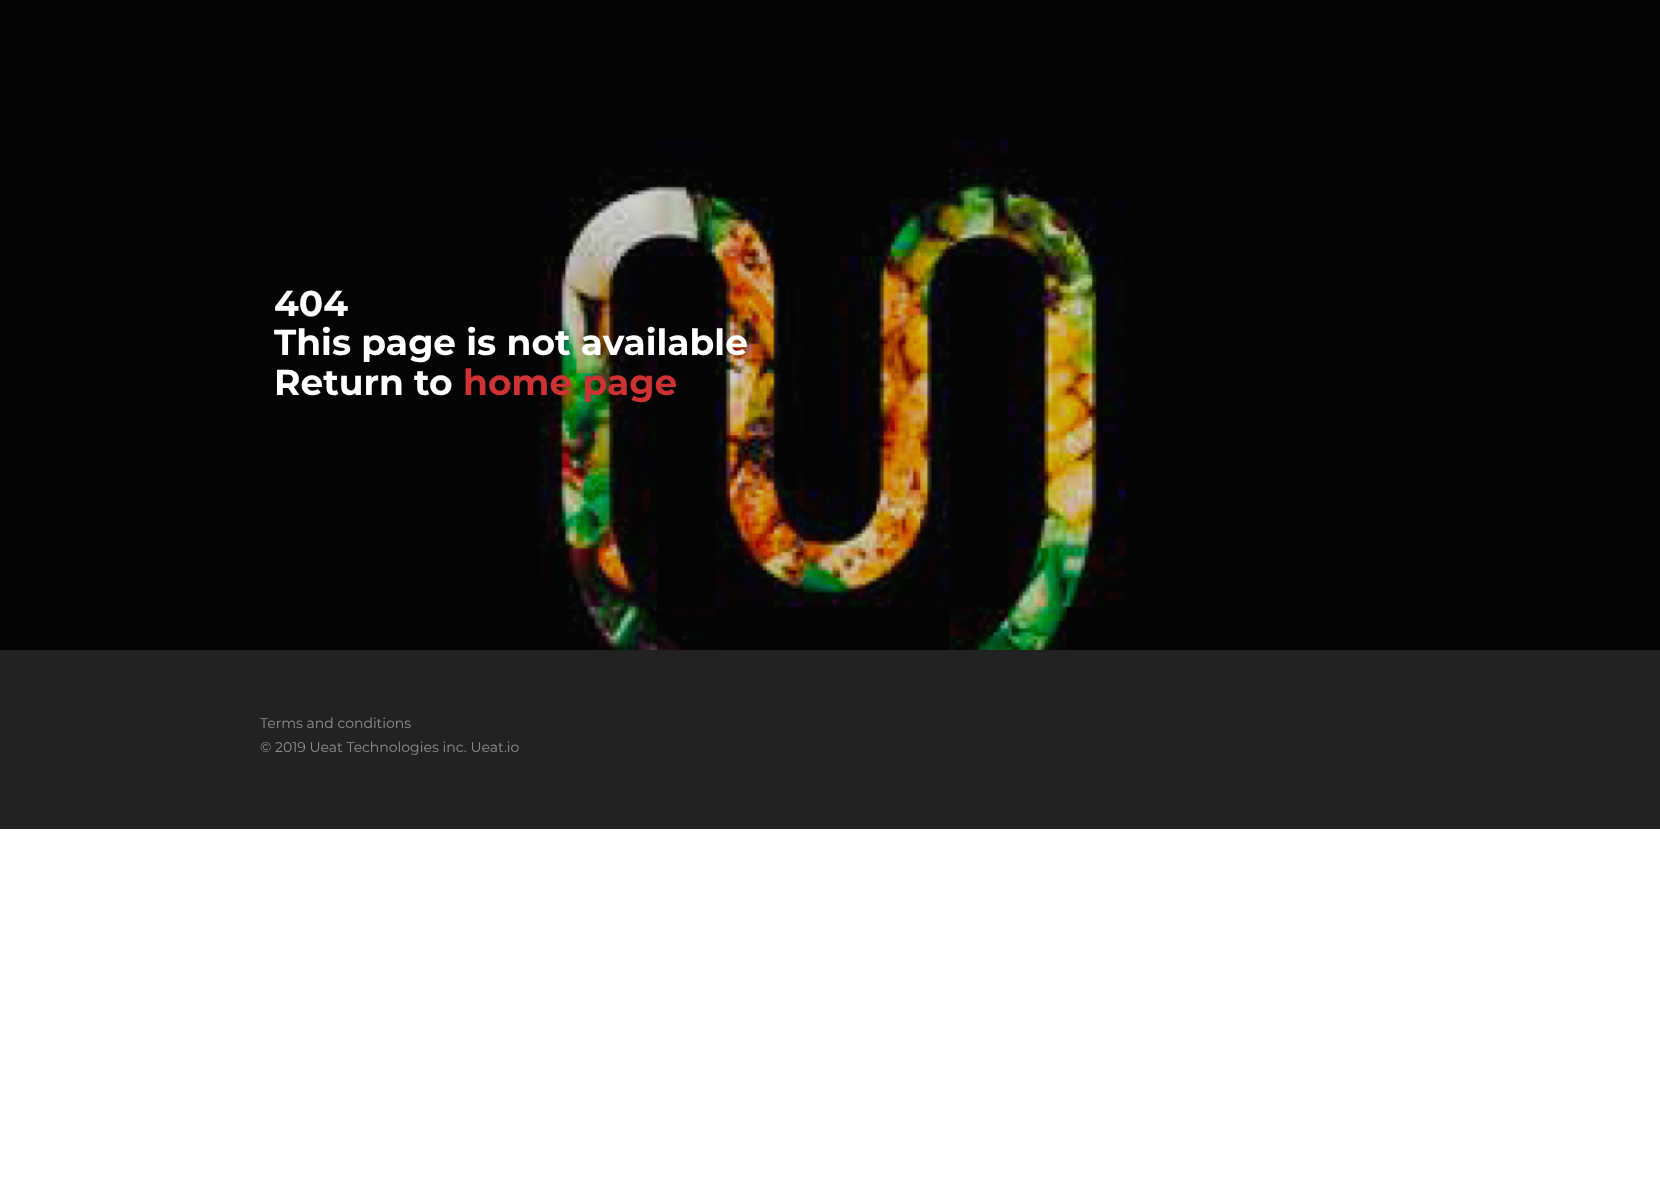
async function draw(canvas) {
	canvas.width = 1660;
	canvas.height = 1195;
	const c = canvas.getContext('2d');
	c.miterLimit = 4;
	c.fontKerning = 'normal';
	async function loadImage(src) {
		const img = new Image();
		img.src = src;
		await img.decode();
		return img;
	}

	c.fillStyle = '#fff';
	c.fillRect(0, 0, 1660, 1195);
	c.drawImage(await loadImage('img1.png'), 0, 0, 1660, 650);
	c.font = 'bold 36px Montserrat';
	for (const [text, x, y] of [
		['404', 274, 316],
		['This page is not available', 274, 355],
		['Return to', 274, 395],
	]) {
		c.fillText(text, x, y);
	}
	c.fillStyle = '#ce3232';
	c.fillText('home page', 463, 395);
	c.fillStyle = '#222';
	c.fillRect(0, 651, 1660, 178);
	c.fillStyle = '#202020';
	c.fillRect(0, 650, 1660, 1);
	c.font = '14px Montserrat';
	c.fillStyle = '#909090';
	c.fillText('Terms and conditions', 260, 728);
	c.fillText('© 2019 Ueat Technologies inc. Ueat.io', 260, 752);
}

draw(document.querySelector('canvas'));
